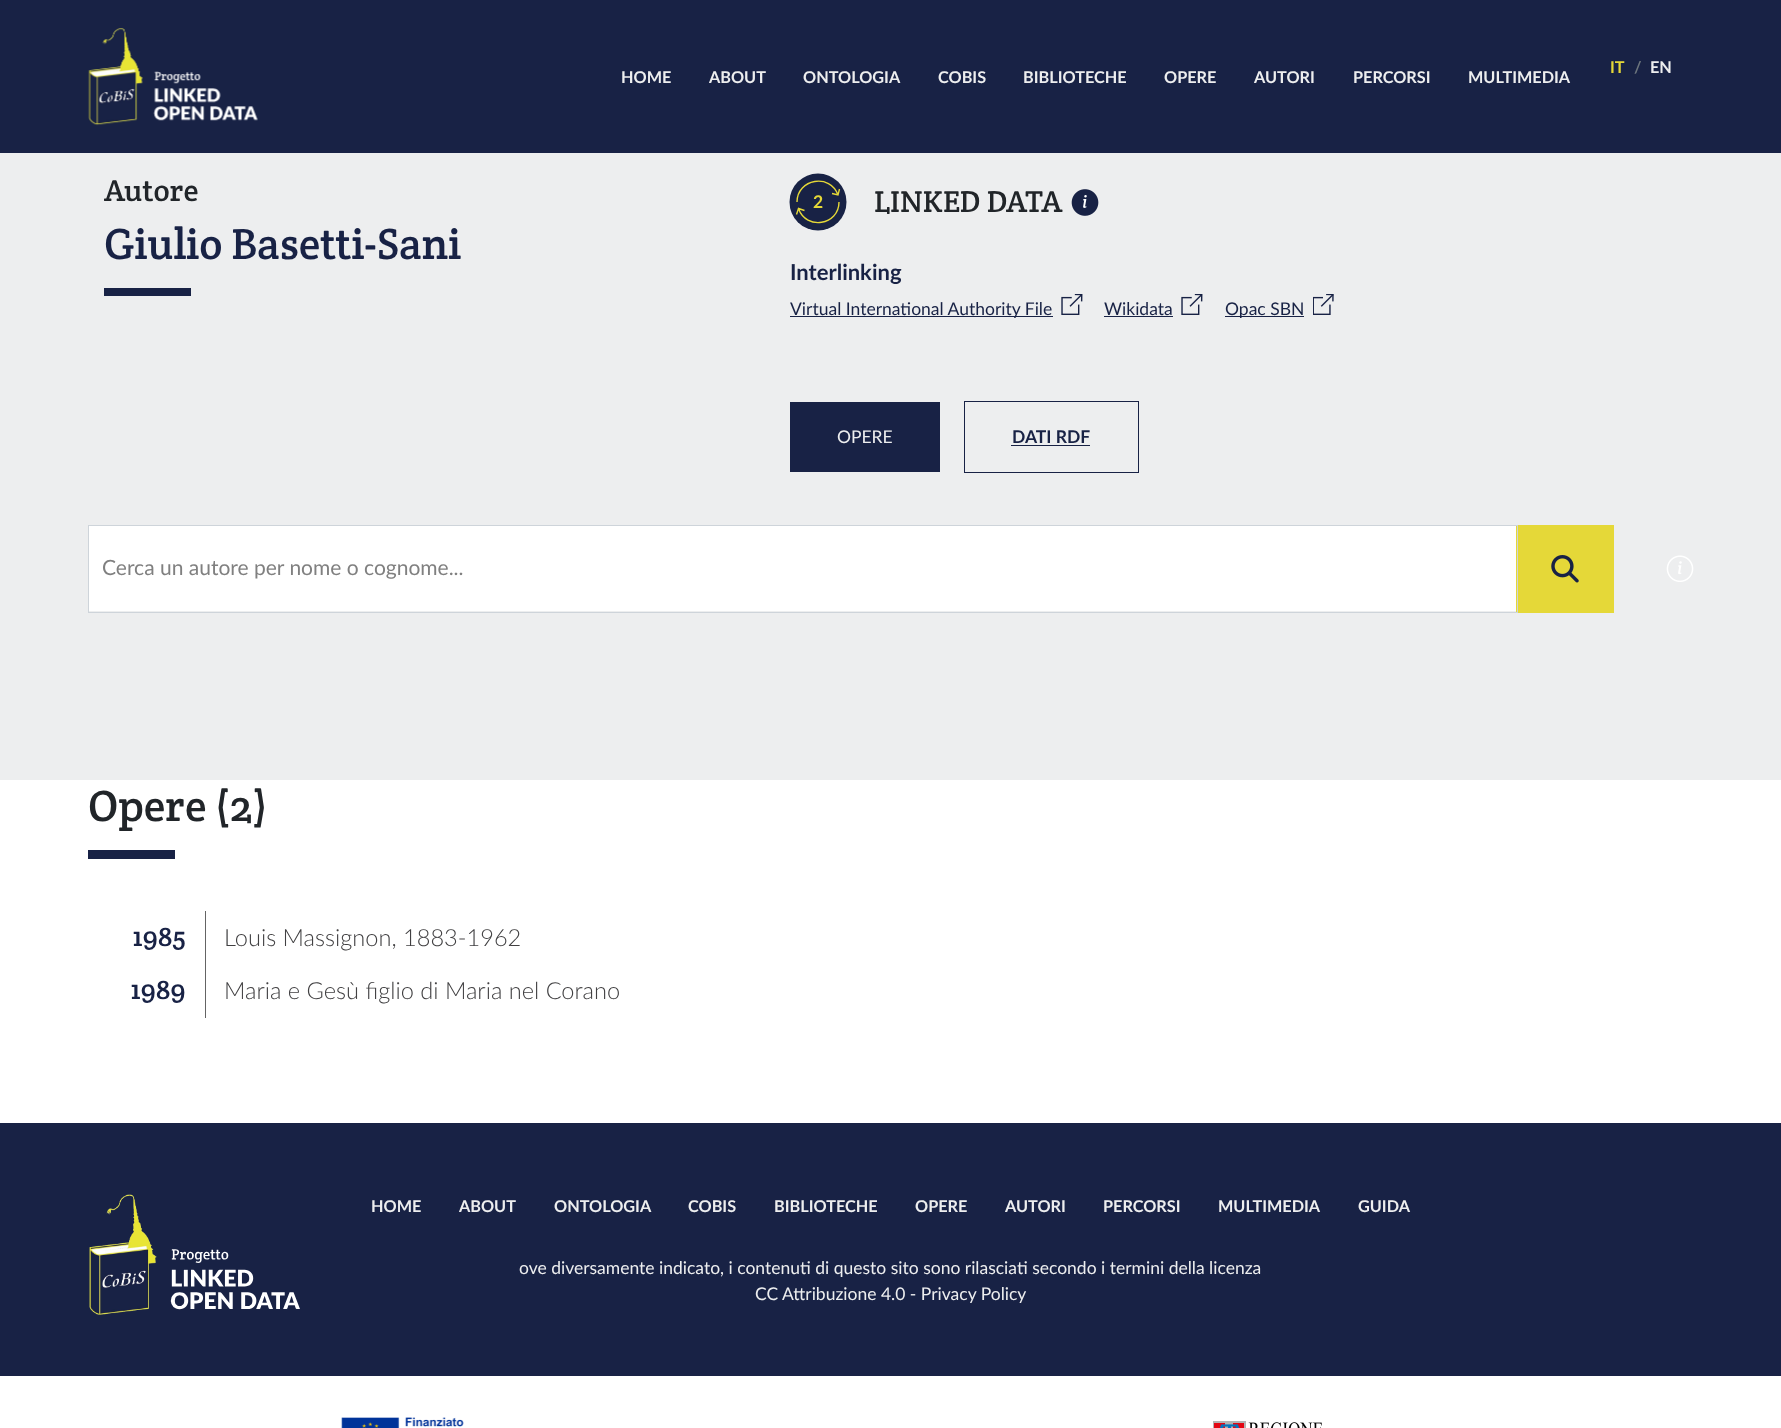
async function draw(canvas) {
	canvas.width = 1781;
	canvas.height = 1428;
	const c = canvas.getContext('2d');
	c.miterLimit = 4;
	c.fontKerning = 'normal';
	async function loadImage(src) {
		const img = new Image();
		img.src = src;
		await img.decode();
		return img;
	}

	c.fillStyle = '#fff';
	c.fillRect(0, 0, 1781, 1428);
	c.fillStyle = '#182245';
	c.fillRect(0, 0, 1781, 153);
	c.drawImage(await loadImage('img1.png'), 88, 28, 170, 98);
	c.font = 'bold 16.25px Lato';
	c.fillStyle = '#e5d838';
	c.fillText('IT', 1610, 73);
	c.fillStyle = '#6c757d';
	c.fillText('/', 1634, 73);
	c.fillStyle = '#edeeef';
	for (const [text, x, y] of [
		['EN', 1650, 73],
		['HOME', 621, 83],
		['ABOUT', 709, 83],
		['ONTOLOGIA', 803, 83],
		['COBIS', 938, 83],
		['BIBLIOTECHE', 1023, 83],
		['OPERE', 1164, 83],
		['AUTORI', 1254, 83],
		['PERCORSI', 1353, 83],
		['MULTIMEDIA', 1468, 83],
	]) {
		c.fillText(text, x, y);
	}
	c.fillRect(0, 153, 1781, 627);
	c.font = '30.5px Crete Round';
	c.fillStyle = '#212529';
	c.fillText('Autore', 104, 201);
	c.font = '43.75px Crete Round';
	c.fillStyle = '#182245';
	c.fillText('Giulio Basetti-Sani', 104, 259);
	c.fillRect(104, 288, 87, 8);
	c.beginPath();
	c.arc(818, 202, 28.5, 0, 2 * Math.PI);
	c.fill();
	c.beginPath();
	c.moveTo(839.5, 189);
	c.lineTo(838, 195);
	c.lineTo(832, 193.5);
	c.moveTo(797, 202);
	c.bezierCurveTo(797, 178.5, 830.5, 173, 838, 195);
	c.moveTo(796.5, 214.5);
	c.lineTo(798.5, 208.5);
	c.lineTo(804.5, 210.5);
	c.moveTo(839, 202);
	c.bezierCurveTo(839, 225.5, 806, 230.5, 798.5, 208.5);
	c.strokeStyle = '#e5d838';
	c.lineWidth = 1.4;
	c.stroke();
	c.font = 'bold 17.5px Lato';
	c.fillStyle = '#e5d838';
	c.fillText('2', 813, 208);
	c.font = '30.5px Crete Round';
	c.fillStyle = '#212529';
	c.fillText('LINKED DATA', 874, 212);
	c.drawImage(await loadImage('img2.png'), 1071, 189, 28, 27);
	c.font = 'bold 22px Lato';
	c.fillStyle = '#182245';
	c.fillText('Interlinking', 790, 280);
	c.fillRect(790, 316, 263, 1);
	c.font = '17.5px Lato';
	c.fillText('Virtual International Authority File', 790, 315);
	c.drawImage(await loadImage('img3.png'), 1061, 294, 22, 21);
	c.fillText('Wikidata', 1104, 315);
	c.fillRect(1104, 316, 69, 1);
	c.drawImage(await loadImage('img3.png'), 1181, 294, 22, 21);
	c.fillRect(1225, 316, 79, 1);
	c.fillText('Opac SBN', 1225, 315);
	c.drawImage(await loadImage('img4.png'), 1313, 294, 21, 21);
	c.fillRect(790, 402, 150, 70);
	c.fillStyle = '#edeeef';
	c.fillText('OPERE', 837, 443);
	c.strokeStyle = '#182245';
	c.lineWidth = 1;
	c.strokeRect(964.5, 401.5, 174, 71);
	c.font = 'bold 17.5px Lato';
	c.fillStyle = '#182245';
	c.fillText('DATI RDF', 1012, 443);
	for (const [x, y, w, h, color] of [
		[1011, 445, 79, 1, '#182245'],
		[89, 526, 1427, 85, '#fff'],
		[1516, 525, 98, 88, '#e5d838'],
	]) {
		c.fillStyle = color;
		c.fillRect(x, y, w, h);
	}
	c.strokeStyle = '#ced4da';
	c.strokeRect(88.5, 525.5, 1429, 87);
	c.font = '21px Lato';
	c.fillStyle = '#808080';
	c.fillText('Cerca un autore per nome o cognome...', 102, 575);
	c.drawImage(await loadImage('img5.png'), 1551, 555, 28, 28);
	c.drawImage(await loadImage('img6.png'), 1666, 555, 28, 27);
	c.font = '43.75px Crete Round';
	c.fillStyle = '#212529';
	c.fillText('Opere (2)', 88, 821);
	c.fillStyle = '#182245';
	c.fillRect(88, 850, 87, 9);
	c.fillStyle = '#646464';
	c.fillRect(205, 911, 1, 107);
	c.font = '28px Crete Round';
	c.fillStyle = '#182245';
	c.fillText('1985', 133, 946);
	c.font = '300 23.6px Lato';
	c.fillStyle = '#414042';
	c.fillText('Louis Massignon, 1883-1962', 224, 946);
	c.font = '28px Crete Round';
	c.fillStyle = '#182245';
	c.fillText('1989', 131, 999);
	c.font = '300 23.6px Lato';
	c.fillStyle = '#414042';
	c.fillText('Maria e Gesù figlio di Maria nel Corano', 224, 999);
	c.fillStyle = '#182245';
	c.fillRect(0, 1123, 1781, 253);
	c.drawImage(await loadImage('img7.png'), 89, 1194, 211, 121);
	c.font = 'bold 16.25px Lato';
	c.fillStyle = '#edeeef';
	for (const [text, x, y] of [
		['HOME', 371, 1212],
		['ABOUT', 459, 1212],
		['ONTOLOGIA', 554, 1212],
		['COBIS', 688, 1212],
		['BIBLIOTECHE', 774, 1212],
		['OPERE', 915, 1212],
		['AUTORI', 1005, 1212],
		['PERCORSI', 1103, 1212],
		['MULTIMEDIA', 1218, 1212],
		['GUIDA', 1358, 1212],
	]) {
		c.fillText(text, x, y);
	}
	c.font = '17.5px Lato';
	c.fillText('ove diversamente indicato, i contenuti di questo sito sono rilasciati secondo i termini della licenza', 519, 1274);
	c.fillText('CC Attribuzione 4.0 - Privacy Policy', 755, 1300);
	c.drawImage(await loadImage('img8.png'), 341, 1417, 123, 11);
	c.drawImage(await loadImage('img9.png'), 1213, 1421, 109, 7);
}

draw(document.querySelector('canvas'));
